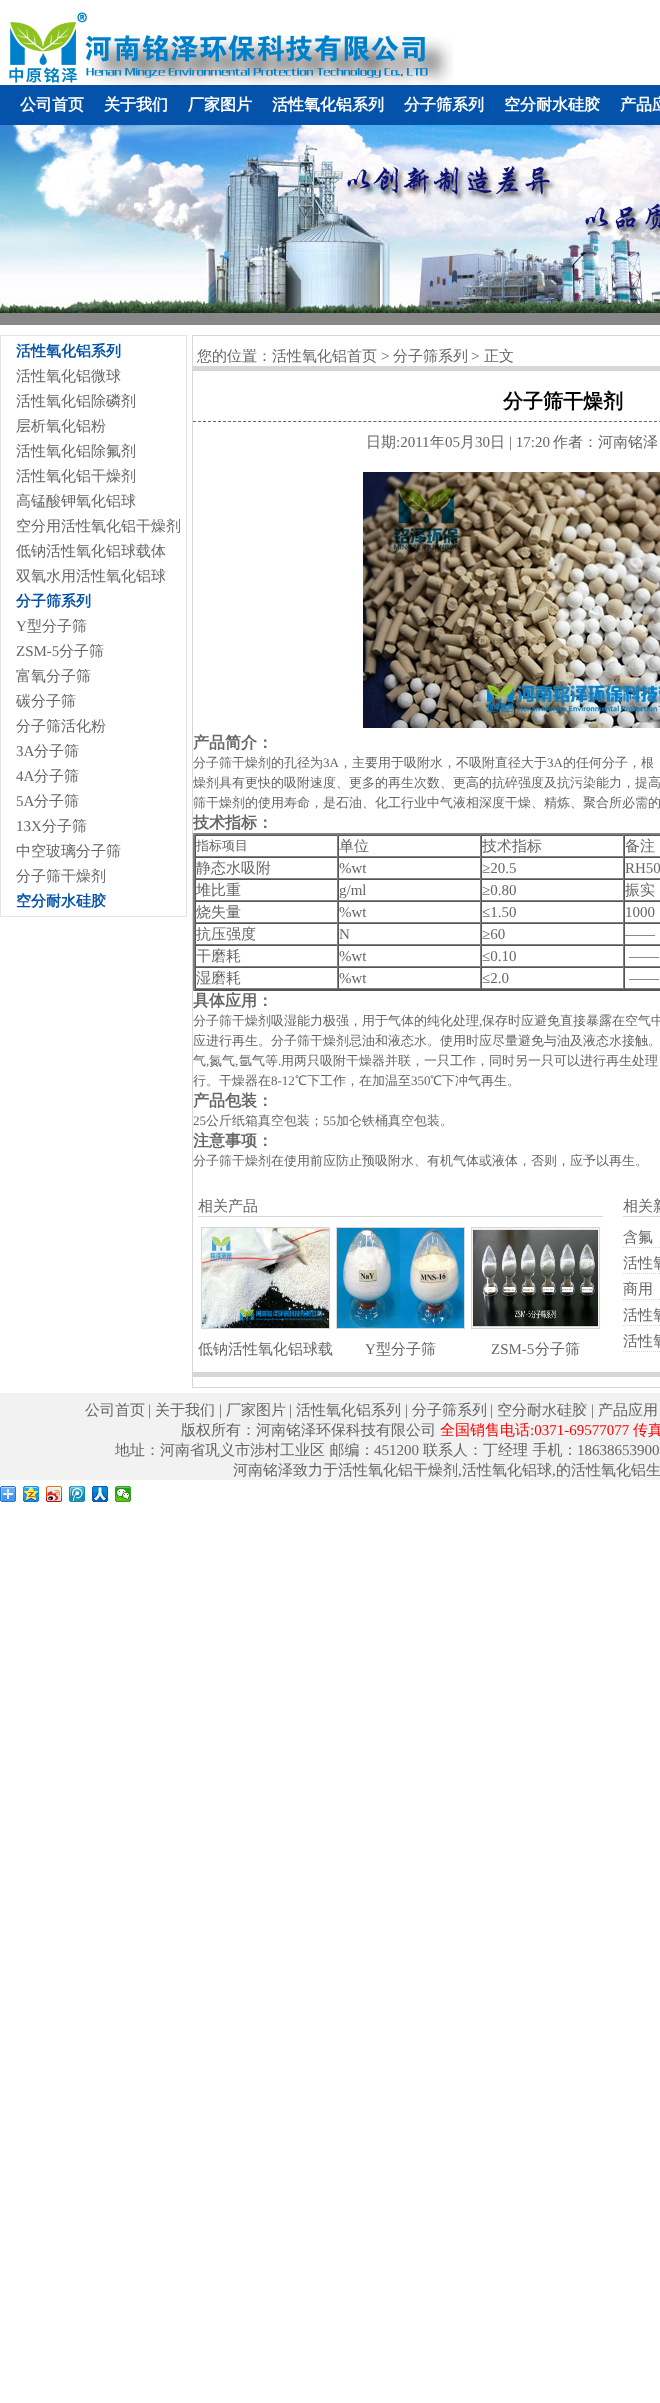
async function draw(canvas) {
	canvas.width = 660;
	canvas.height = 2403;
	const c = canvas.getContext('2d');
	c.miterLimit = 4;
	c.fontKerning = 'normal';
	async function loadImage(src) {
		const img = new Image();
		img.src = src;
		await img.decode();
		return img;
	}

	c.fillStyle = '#fff';
	c.fillRect(0, 0, 660, 2403);
	c.fillStyle = '#0452a9';
	c.fillRect(0, 85, 660, 40);
	c.drawImage(await loadImage('img1.png'), 9, 12, 444, 75);
	c.font = 'bold 16px WenQuanYi Zen Hei';
	c.fillStyle = '#fff';
	for (const [text, x, y] of [
		['公司首页', 20, 110],
		['关于我们', 104, 110],
		['厂家图片', 188, 110],
		['活性氧化铝系列', 272, 110],
		['分子筛系列', 404, 110],
		['空分耐水硅胶', 504, 110],
		['产品应', 620, 110],
	]) {
		c.fillText(text, x, y);
	}
	c.drawImage(await loadImage('img2.png'), 0, 125, 660, 188);
	c.fillStyle = '#888';
	c.fillRect(0, 313, 660, 12);
	c.strokeStyle = '#e5e5e5';
	c.strokeRect(0.5, 335.5, 186, 581);
	c.font = 'bold 15px WenQuanYi Zen Hei';
	c.fillStyle = '#0452a9';
	c.fillText('活性氧化铝系列', 16, 356);
	c.font = '500 15px WenQuanYi Zen Hei';
	c.fillStyle = '#666';
	for (const [text, x, y] of [
		['活性氧化铝微球', 16, 381],
		['活性氧化铝除磷剂', 16, 406],
		['层析氧化铝粉', 16, 431],
		['活性氧化铝除氟剂', 16, 456],
		['活性氧化铝干燥剂', 16, 481],
		['高锰酸钾氧化铝球', 16, 506],
		['空分用活性氧化铝干燥剂', 16, 531],
		['低钠活性氧化铝球载体', 16, 556],
		['双氧水用活性氧化铝球', 16, 581],
	]) {
		c.fillText(text, x, y);
	}
	c.font = 'bold 15px WenQuanYi Zen Hei';
	c.fillStyle = '#0452a9';
	c.fillText('分子筛系列', 16, 606);
	c.font = '15px Liberation Serif';
	c.fillStyle = '#666';
	c.fillText('Y', 16, 631);
	c.font = '500 15px WenQuanYi Zen Hei';
	c.fillText('型分子筛', 27, 631);
	c.font = '15px Liberation Serif';
	c.fillText('ZSM-5', 16, 656);
	c.font = '500 15px WenQuanYi Zen Hei';
	for (const [text, x, y] of [
		['分子筛', 59, 656],
		['富氧分子筛', 16, 681],
		['碳分子筛', 16, 706],
		['分子筛活化粉', 16, 731],
	]) {
		c.fillText(text, x, y);
	}
	c.font = '15px Liberation Serif';
	c.fillText('3A', 16, 756);
	c.font = '500 15px WenQuanYi Zen Hei';
	c.fillText('分子筛', 34, 756);
	c.font = '15px Liberation Serif';
	c.fillText('4A', 16, 781);
	c.font = '500 15px WenQuanYi Zen Hei';
	c.fillText('分子筛', 34, 781);
	c.font = '15px Liberation Serif';
	c.fillText('5A', 16, 806);
	c.font = '500 15px WenQuanYi Zen Hei';
	c.fillText('分子筛', 34, 806);
	c.font = '15px Liberation Serif';
	c.fillText('13X', 16, 831);
	c.font = '500 15px WenQuanYi Zen Hei';
	for (const [text, x, y] of [
		['分子筛', 42, 831],
		['中空玻璃分子筛', 16, 856],
		['分子筛干燥剂', 16, 881],
	]) {
		c.fillText(text, x, y);
	}
	c.font = 'bold 15px WenQuanYi Zen Hei';
	c.fillStyle = '#0452a9';
	c.fillText('空分耐水硅胶', 16, 906);
	c.strokeStyle = '#d7d7d7';
	c.strokeRect(192.5, 335.5, 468, 1052);
	c.fillStyle = '#d7d7d7';
	c.fillRect(193, 366, 467, 5);
	c.font = '500 15px WenQuanYi Zen Hei';
	c.fillStyle = '#666';
	c.fillText('您的位置：活性氧化铝首页', 197, 361);
	c.font = '15px Liberation Serif';
	c.fillText('>', 381, 361);
	c.font = '500 15px WenQuanYi Zen Hei';
	c.fillText('分子筛系列', 393, 361);
	c.font = '15px Liberation Serif';
	c.fillText('>', 471, 361);
	c.font = '500 15px WenQuanYi Zen Hei';
	c.fillText('正文', 484, 361);
	c.beginPath();
	c.moveTo(193, 421.5);
	c.lineTo(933, 421.5);
	c.strokeStyle = '#666';
	c.setLineDash([3, 2.01]);
	c.stroke();
	c.font = 'bold 20px WenQuanYi Zen Hei';
	c.fillStyle = '#000';
	c.fillText('分子筛干燥剂', 503, 408);
	c.font = '500 15px WenQuanYi Zen Hei';
	c.fillStyle = '#666';
	c.fillText('日期', 366, 447);
	c.font = '15px Liberation Serif';
	c.fillText(':2011', 396, 447);
	c.font = '500 15px WenQuanYi Zen Hei';
	c.fillText('年', 430, 447);
	c.font = '15px Liberation Serif';
	c.fillText('05', 445, 447);
	c.font = '500 15px WenQuanYi Zen Hei';
	c.fillText('月', 460, 447);
	c.font = '15px Liberation Serif';
	c.fillText('30', 475, 447);
	c.font = '500 15px WenQuanYi Zen Hei';
	c.fillText('日', 490, 447);
	c.font = '15px Liberation Serif';
	c.fillText('| 17:20', 509, 447);
	c.font = '500 15px WenQuanYi Zen Hei';
	c.fillText('作者：河南铭泽', 553, 447);
	c.drawImage(await loadImage('img3.png'), 363, 472, 297, 256);
	c.font = 'bold 16px WenQuanYi Zen Hei';
	c.fillText('产品简介：', 193, 748);
	c.font = '500 13px WenQuanYi Zen Hei';
	c.fillText('分子筛干燥剂的孔径为', 193, 767);
	c.font = '13px Liberation Serif';
	c.fillText('3A', 323, 767);
	c.font = '500 13px WenQuanYi Zen Hei';
	c.fillText('，主要用于吸附水，不吸附直径大于', 339, 767);
	c.font = '13px Liberation Serif';
	c.fillText('3A', 547, 767);
	c.font = '500 13px WenQuanYi Zen Hei';
	for (const [text, x, y] of [
		['的任何分子，根', 563, 767],
		['燥剂具有更快的吸附速度、更多的再生次数、更高的抗碎强度及抗污染能力，提高', 193, 787],
		['筛干燥剂的使用寿命，是石油、化工行业中气液相深度干燥、精炼、聚合所必需的', 193, 807],
	]) {
		c.fillText(text, x, y);
	}
	c.font = 'bold 16px WenQuanYi Zen Hei';
	c.fillText('技术指标：', 193, 828);
	c.fillStyle = '#808080';
	c.beginPath();
	c.moveTo(193, 833);
	c.lineTo(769, 833);
	c.lineTo(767, 835);
	c.lineTo(195, 835);
	c.closePath();
	c.fill();
	c.fillStyle = '#555';
	c.beginPath();
	c.moveTo(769, 991);
	c.lineTo(193, 991);
	c.lineTo(195, 989);
	c.lineTo(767, 989);
	c.closePath();
	c.fill();
	c.fillStyle = '#808080';
	c.beginPath();
	c.moveTo(193, 991);
	c.lineTo(193, 833);
	c.lineTo(195, 835);
	c.lineTo(195, 989);
	c.closePath();
	c.fill();
	for (const [x, y, w, h, color] of [
		[195, 835, 465, 1, '#555'],
		[337, 835, 1, 22, '#808080'],
		[195, 856, 143, 1, '#808080'],
		[195, 835, 1, 22, '#555'],
	]) {
		c.fillStyle = color;
		c.fillRect(x, y, w, h);
	}
	c.font = '500 13px WenQuanYi Zen Hei';
	c.fillStyle = '#666';
	c.fillText('指标项目', 196, 850);
	for (const [x, y, w, h, color] of [
		[480, 835, 1, 22, '#808080'],
		[338, 856, 143, 1, '#808080'],
		[338, 835, 1, 22, '#555'],
	]) {
		c.fillStyle = color;
		c.fillRect(x, y, w, h);
	}
	c.font = '500 15px WenQuanYi Zen Hei';
	c.fillStyle = '#666';
	c.fillText('单位', 339, 851);
	for (const [x, y, w, h, color] of [
		[623, 835, 1, 22, '#808080'],
		[481, 856, 179, 1, '#808080'],
		[481, 835, 1, 22, '#555'],
	]) {
		c.fillStyle = color;
		c.fillRect(x, y, w, h);
	}
	c.fillStyle = '#666';
	c.fillText('技术指标', 482, 851);
	c.fillStyle = '#555';
	c.fillRect(624, 835, 1, 22);
	c.fillStyle = '#666';
	c.fillText('备注', 625, 851);
	for (const [x, y, w, h, color] of [
		[195, 857, 465, 1, '#555'],
		[337, 857, 1, 22, '#808080'],
		[195, 878, 143, 1, '#808080'],
		[195, 857, 1, 22, '#555'],
	]) {
		c.fillStyle = color;
		c.fillRect(x, y, w, h);
	}
	c.fillStyle = '#666';
	c.fillText('静态水吸附', 196, 873);
	for (const [x, y, w, h, color] of [
		[480, 857, 1, 22, '#808080'],
		[338, 878, 143, 1, '#808080'],
		[338, 857, 1, 22, '#555'],
	]) {
		c.fillStyle = color;
		c.fillRect(x, y, w, h);
	}
	c.font = '15px Liberation Serif';
	c.fillStyle = '#666';
	c.fillText('%wt', 339, 873);
	for (const [x, y, w, h, color] of [
		[623, 857, 1, 22, '#808080'],
		[481, 878, 179, 1, '#808080'],
		[481, 857, 1, 22, '#555'],
	]) {
		c.fillStyle = color;
		c.fillRect(x, y, w, h);
	}
	c.fillStyle = '#666';
	c.fillText('≥20.5', 482, 873);
	c.fillStyle = '#555';
	c.fillRect(624, 857, 1, 22);
	c.fillStyle = '#666';
	c.fillText('RH50', 625, 873);
	for (const [x, y, w, h, color] of [
		[195, 879, 465, 1, '#555'],
		[337, 879, 1, 22, '#808080'],
		[195, 900, 143, 1, '#808080'],
		[195, 879, 1, 22, '#555'],
	]) {
		c.fillStyle = color;
		c.fillRect(x, y, w, h);
	}
	c.font = '500 15px WenQuanYi Zen Hei';
	c.fillStyle = '#666';
	c.fillText('堆比重', 196, 895);
	for (const [x, y, w, h, color] of [
		[480, 879, 1, 22, '#808080'],
		[338, 900, 143, 1, '#808080'],
		[338, 879, 1, 22, '#555'],
	]) {
		c.fillStyle = color;
		c.fillRect(x, y, w, h);
	}
	c.font = '15px Liberation Serif';
	c.fillStyle = '#666';
	c.fillText('g/ml', 339, 895);
	for (const [x, y, w, h, color] of [
		[623, 879, 1, 22, '#808080'],
		[481, 900, 179, 1, '#808080'],
		[481, 879, 1, 22, '#555'],
	]) {
		c.fillStyle = color;
		c.fillRect(x, y, w, h);
	}
	c.fillStyle = '#666';
	c.fillText('≥0.80', 482, 895);
	c.fillStyle = '#555';
	c.fillRect(624, 879, 1, 22);
	c.font = '500 15px WenQuanYi Zen Hei';
	c.fillStyle = '#666';
	c.fillText('振实', 625, 895);
	for (const [x, y, w, h, color] of [
		[195, 901, 465, 1, '#555'],
		[337, 901, 1, 22, '#808080'],
		[195, 922, 143, 1, '#808080'],
		[195, 901, 1, 22, '#555'],
	]) {
		c.fillStyle = color;
		c.fillRect(x, y, w, h);
	}
	c.fillStyle = '#666';
	c.fillText('烧失量', 196, 917);
	for (const [x, y, w, h, color] of [
		[480, 901, 1, 22, '#808080'],
		[338, 922, 143, 1, '#808080'],
		[338, 901, 1, 22, '#555'],
	]) {
		c.fillStyle = color;
		c.fillRect(x, y, w, h);
	}
	c.font = '15px Liberation Serif';
	c.fillStyle = '#666';
	c.fillText('%wt', 339, 917);
	for (const [x, y, w, h, color] of [
		[623, 901, 1, 22, '#808080'],
		[481, 922, 179, 1, '#808080'],
		[481, 901, 1, 22, '#555'],
	]) {
		c.fillStyle = color;
		c.fillRect(x, y, w, h);
	}
	c.fillStyle = '#666';
	c.fillText('≤1.50', 482, 917);
	c.fillStyle = '#555';
	c.fillRect(624, 901, 1, 22);
	c.fillStyle = '#666';
	c.fillText('1000', 625, 917);
	for (const [x, y, w, h, color] of [
		[195, 923, 465, 1, '#555'],
		[337, 923, 1, 22, '#808080'],
		[195, 944, 143, 1, '#808080'],
		[195, 923, 1, 22, '#555'],
	]) {
		c.fillStyle = color;
		c.fillRect(x, y, w, h);
	}
	c.font = '500 15px WenQuanYi Zen Hei';
	c.fillStyle = '#666';
	c.fillText('抗压强度', 196, 939);
	for (const [x, y, w, h, color] of [
		[480, 923, 1, 22, '#808080'],
		[338, 944, 143, 1, '#808080'],
		[338, 923, 1, 22, '#555'],
	]) {
		c.fillStyle = color;
		c.fillRect(x, y, w, h);
	}
	c.font = '15px Liberation Serif';
	c.fillStyle = '#666';
	c.fillText('N', 339, 939);
	for (const [x, y, w, h, color] of [
		[623, 923, 1, 22, '#808080'],
		[481, 944, 179, 1, '#808080'],
		[481, 923, 1, 22, '#555'],
	]) {
		c.fillStyle = color;
		c.fillRect(x, y, w, h);
	}
	c.fillStyle = '#666';
	c.fillText('≥60', 482, 939);
	c.fillStyle = '#555';
	c.fillRect(624, 923, 1, 22);
	c.fillStyle = '#666';
	c.fillText('——', 625, 939);
	for (const [x, y, w, h, color] of [
		[195, 945, 465, 1, '#555'],
		[337, 945, 1, 22, '#808080'],
		[195, 966, 143, 1, '#808080'],
		[195, 945, 1, 22, '#555'],
	]) {
		c.fillStyle = color;
		c.fillRect(x, y, w, h);
	}
	c.font = '500 15px WenQuanYi Zen Hei';
	c.fillStyle = '#666';
	c.fillText('干磨耗', 196, 961);
	for (const [x, y, w, h, color] of [
		[480, 945, 1, 22, '#808080'],
		[338, 966, 143, 1, '#808080'],
		[338, 945, 1, 22, '#555'],
	]) {
		c.fillStyle = color;
		c.fillRect(x, y, w, h);
	}
	c.font = '15px Liberation Serif';
	c.fillStyle = '#666';
	c.fillText('%wt', 339, 961);
	for (const [x, y, w, h, color] of [
		[623, 945, 1, 22, '#808080'],
		[481, 966, 179, 1, '#808080'],
		[481, 945, 1, 22, '#555'],
	]) {
		c.fillStyle = color;
		c.fillRect(x, y, w, h);
	}
	c.fillStyle = '#666';
	c.fillText('≤0.10', 482, 961);
	c.fillStyle = '#555';
	c.fillRect(624, 945, 1, 22);
	c.fillStyle = '#666';
	c.fillText('——', 629, 961);
	for (const [x, y, w, h, color] of [
		[195, 967, 465, 1, '#555'],
		[337, 967, 1, 22, '#808080'],
		[195, 988, 143, 1, '#808080'],
		[195, 967, 1, 22, '#555'],
	]) {
		c.fillStyle = color;
		c.fillRect(x, y, w, h);
	}
	c.font = '500 15px WenQuanYi Zen Hei';
	c.fillStyle = '#666';
	c.fillText('湿磨耗', 196, 983);
	for (const [x, y, w, h, color] of [
		[480, 967, 1, 22, '#808080'],
		[338, 988, 143, 1, '#808080'],
		[338, 967, 1, 22, '#555'],
	]) {
		c.fillStyle = color;
		c.fillRect(x, y, w, h);
	}
	c.font = '15px Liberation Serif';
	c.fillStyle = '#666';
	c.fillText('%wt', 339, 983);
	for (const [x, y, w, h, color] of [
		[623, 967, 1, 22, '#808080'],
		[481, 988, 179, 1, '#808080'],
		[481, 967, 1, 22, '#555'],
	]) {
		c.fillStyle = color;
		c.fillRect(x, y, w, h);
	}
	c.fillStyle = '#666';
	c.fillText('≤2.0', 482, 983);
	c.fillStyle = '#555';
	c.fillRect(624, 967, 1, 22);
	c.fillStyle = '#666';
	c.fillText('——', 629, 983);
	c.font = 'bold 16px WenQuanYi Zen Hei';
	c.fillText('具体应用：', 193, 1006);
	c.font = '500 13px WenQuanYi Zen Hei';
	c.fillText('分子筛干燥剂吸湿能力极强，用于气体的纯化处理', 193, 1025);
	c.font = '13px Liberation Serif';
	c.fillText(',', 479, 1025);
	c.font = '500 13px WenQuanYi Zen Hei';
	for (const [text, x, y] of [
		['保存时应避免直接暴露在空气中', 482, 1025],
		['应进行再生。分子筛干燥剂忌油和液态水。使用时应尽量避免与油及液态水接触。', 193, 1045],
		['气', 193, 1065],
	]) {
		c.fillText(text, x, y);
	}
	c.font = '13px Liberation Serif';
	c.fillText(',', 206, 1065);
	c.font = '500 13px WenQuanYi Zen Hei';
	c.fillText('氮气', 209, 1065);
	c.font = '13px Liberation Serif';
	c.fillText(',', 235, 1065);
	c.font = '500 13px WenQuanYi Zen Hei';
	c.fillText('氩气等', 239, 1065);
	c.font = '13px Liberation Serif';
	c.fillText('.', 278, 1065);
	c.font = '500 13px WenQuanYi Zen Hei';
	c.fillText('用两只吸附干燥器并联，一只工作，同时另一只可以进行再生处理', 281, 1065);
	c.fillText('行。干燥器在', 193, 1085);
	c.font = '13px Liberation Serif';
	c.fillText('8-12', 271, 1085);
	c.font = '500 13px WenQuanYi Zen Hei';
	c.fillText('℃下工作，在加温至', 295, 1085);
	c.font = '13px Liberation Serif';
	c.fillText('350', 411, 1085);
	c.font = '500 13px WenQuanYi Zen Hei';
	c.fillText('℃下冲气再生。', 430, 1085);
	c.font = 'bold 16px WenQuanYi Zen Hei';
	c.fillText('产品包装：', 193, 1106);
	c.font = '13px Liberation Serif';
	c.fillText('25', 193, 1125);
	c.font = '500 13px WenQuanYi Zen Hei';
	c.fillText('公斤纸箱真空包装；', 206, 1125);
	c.font = '13px Liberation Serif';
	c.fillText('55', 323, 1125);
	c.font = '500 13px WenQuanYi Zen Hei';
	c.fillText('加仑铁桶真空包装。', 336, 1125);
	c.font = 'bold 16px WenQuanYi Zen Hei';
	c.fillText('注意事项：', 193, 1146);
	c.font = '500 13px WenQuanYi Zen Hei';
	c.fillText('分子筛干燥剂在使用前应防止预吸附水、有机气体或液体，否则，应予以再生。', 193, 1165);
	c.fillStyle = '#d7d7d7';
	c.fillRect(198, 1216, 405, 1);
	c.font = '500 15px WenQuanYi Zen Hei';
	c.fillStyle = '#666';
	c.fillText('相关产品', 198, 1211);
	c.strokeStyle = '#d7d7d7';
	c.setLineDash([]);
	c.strokeRect(201.5, 1227.5, 128, 101);
	c.drawImage(await loadImage('img4.png'), 202, 1228, 127, 100);
	c.fillText('低钠活性氧化铝球载', 198, 1354);
	c.strokeRect(336.5, 1227.5, 128, 101);
	c.drawImage(await loadImage('img5.png'), 337, 1228, 127, 100);
	c.font = '15px Liberation Serif';
	c.fillText('Y', 365, 1354);
	c.font = '500 15px WenQuanYi Zen Hei';
	c.fillText('型分子筛', 376, 1354);
	c.strokeRect(471.5, 1227.5, 128, 101);
	c.drawImage(await loadImage('img6.png'), 472, 1228, 127, 100);
	c.font = '15px Liberation Serif';
	c.fillText('ZSM-5', 491, 1354);
	c.font = '500 15px WenQuanYi Zen Hei';
	c.fillText('分子筛', 535, 1354);
	c.fillStyle = '#d7d7d7';
	c.fillRect(623, 1216, 37, 1);
	c.fillStyle = '#666';
	c.fillText('相关新', 623, 1211);
	c.beginPath();
	c.moveTo(623, 1247.5);
	c.lineTo(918, 1247.5);
	c.moveTo(623, 1273.5);
	c.lineTo(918, 1273.5);
	c.moveTo(623, 1299.5);
	c.lineTo(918, 1299.5);
	c.setLineDash([1, 1]);
	c.stroke();
	for (const [text, x, y] of [
		['含氟', 623, 1242],
		['活性氧', 623, 1268],
		['商用', 623, 1294],
	]) {
		c.fillText(text, x, y);
	}
	c.beginPath();
	c.moveTo(623, 1325.5);
	c.lineTo(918, 1325.5);
	c.moveTo(623, 1351.5);
	c.lineTo(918, 1351.5);
	c.stroke();
	c.fillText('活性氧', 623, 1320);
	c.fillText('活性氧', 623, 1346);
	c.fillStyle = '#d7d7d7';
	c.fillRect(193, 1372, 467, 5);
	c.fillStyle = '#f3f2f2';
	c.fillRect(0, 1393, 660, 87);
	c.fillStyle = '#666';
	c.fillText('公司首页', 85, 1415);
	c.font = '15px Liberation Serif';
	c.fillText('|', 148, 1415);
	c.font = '500 15px WenQuanYi Zen Hei';
	c.fillText('关于我们', 155, 1415);
	c.font = '15px Liberation Serif';
	c.fillText('|', 219, 1415);
	c.font = '500 15px WenQuanYi Zen Hei';
	c.fillText('厂家图片', 226, 1415);
	c.font = '15px Liberation Serif';
	c.fillText('|', 289, 1415);
	c.font = '500 15px WenQuanYi Zen Hei';
	c.fillText('活性氧化铝系列', 296, 1415);
	c.font = '15px Liberation Serif';
	c.fillText('|', 405, 1415);
	c.font = '500 15px WenQuanYi Zen Hei';
	c.fillText('分子筛系列', 412, 1415);
	c.font = '15px Liberation Serif';
	c.fillText('|', 490, 1415);
	c.font = '500 15px WenQuanYi Zen Hei';
	c.fillText('空分耐水硅胶', 497, 1415);
	c.font = '15px Liberation Serif';
	c.fillText('|', 591, 1415);
	c.font = '500 15px WenQuanYi Zen Hei';
	c.fillText('产品应用', 598, 1415);
	c.fillText('版权所有：河南铭泽环保科技有限公司', 181, 1435);
	c.fillStyle = '#f00';
	c.fillText('全国销售电话', 440, 1435);
	c.font = '15px Liberation Serif';
	c.fillText(':0371-69577077', 530, 1435);
	c.font = '500 15px WenQuanYi Zen Hei';
	c.fillText('传真', 633, 1435);
	c.fillStyle = '#666';
	c.fillText('地址：河南省巩义市涉村工业区 邮编：', 115, 1455);
	c.font = '15px Liberation Serif';
	c.fillText('451200', 374, 1455);
	c.font = '500 15px WenQuanYi Zen Hei';
	c.fillText('联系人：丁经理 手机：', 423, 1455);
	c.font = '15px Liberation Serif';
	c.fillText('18638653900', 577, 1455);
	c.font = '500 15px WenQuanYi Zen Hei';
	c.fillText('河南铭泽致力于活性氧化铝干燥剂', 233, 1475);
	c.font = '15px Liberation Serif';
	c.fillText(',', 458, 1475);
	c.font = '500 15px WenQuanYi Zen Hei';
	c.fillText('活性氧化铝球', 462, 1475);
	c.font = '15px Liberation Serif';
	c.fillText(',', 552, 1475);
	c.font = '500 15px WenQuanYi Zen Hei';
	c.fillText('的活性氧化铝生', 556, 1475);
	c.drawImage(await loadImage('img7.png'), 0, 1486, 16, 16);
	c.drawImage(await loadImage('img8.png'), 23, 1486, 16, 16);
	c.drawImage(await loadImage('img9.png'), 46, 1486, 16, 16);
	c.drawImage(await loadImage('img10.png'), 69, 1486, 16, 16);
	c.drawImage(await loadImage('img11.png'), 92, 1486, 16, 16);
	c.drawImage(await loadImage('img12.png'), 115, 1486, 16, 16);
}

draw(document.querySelector('canvas'));
